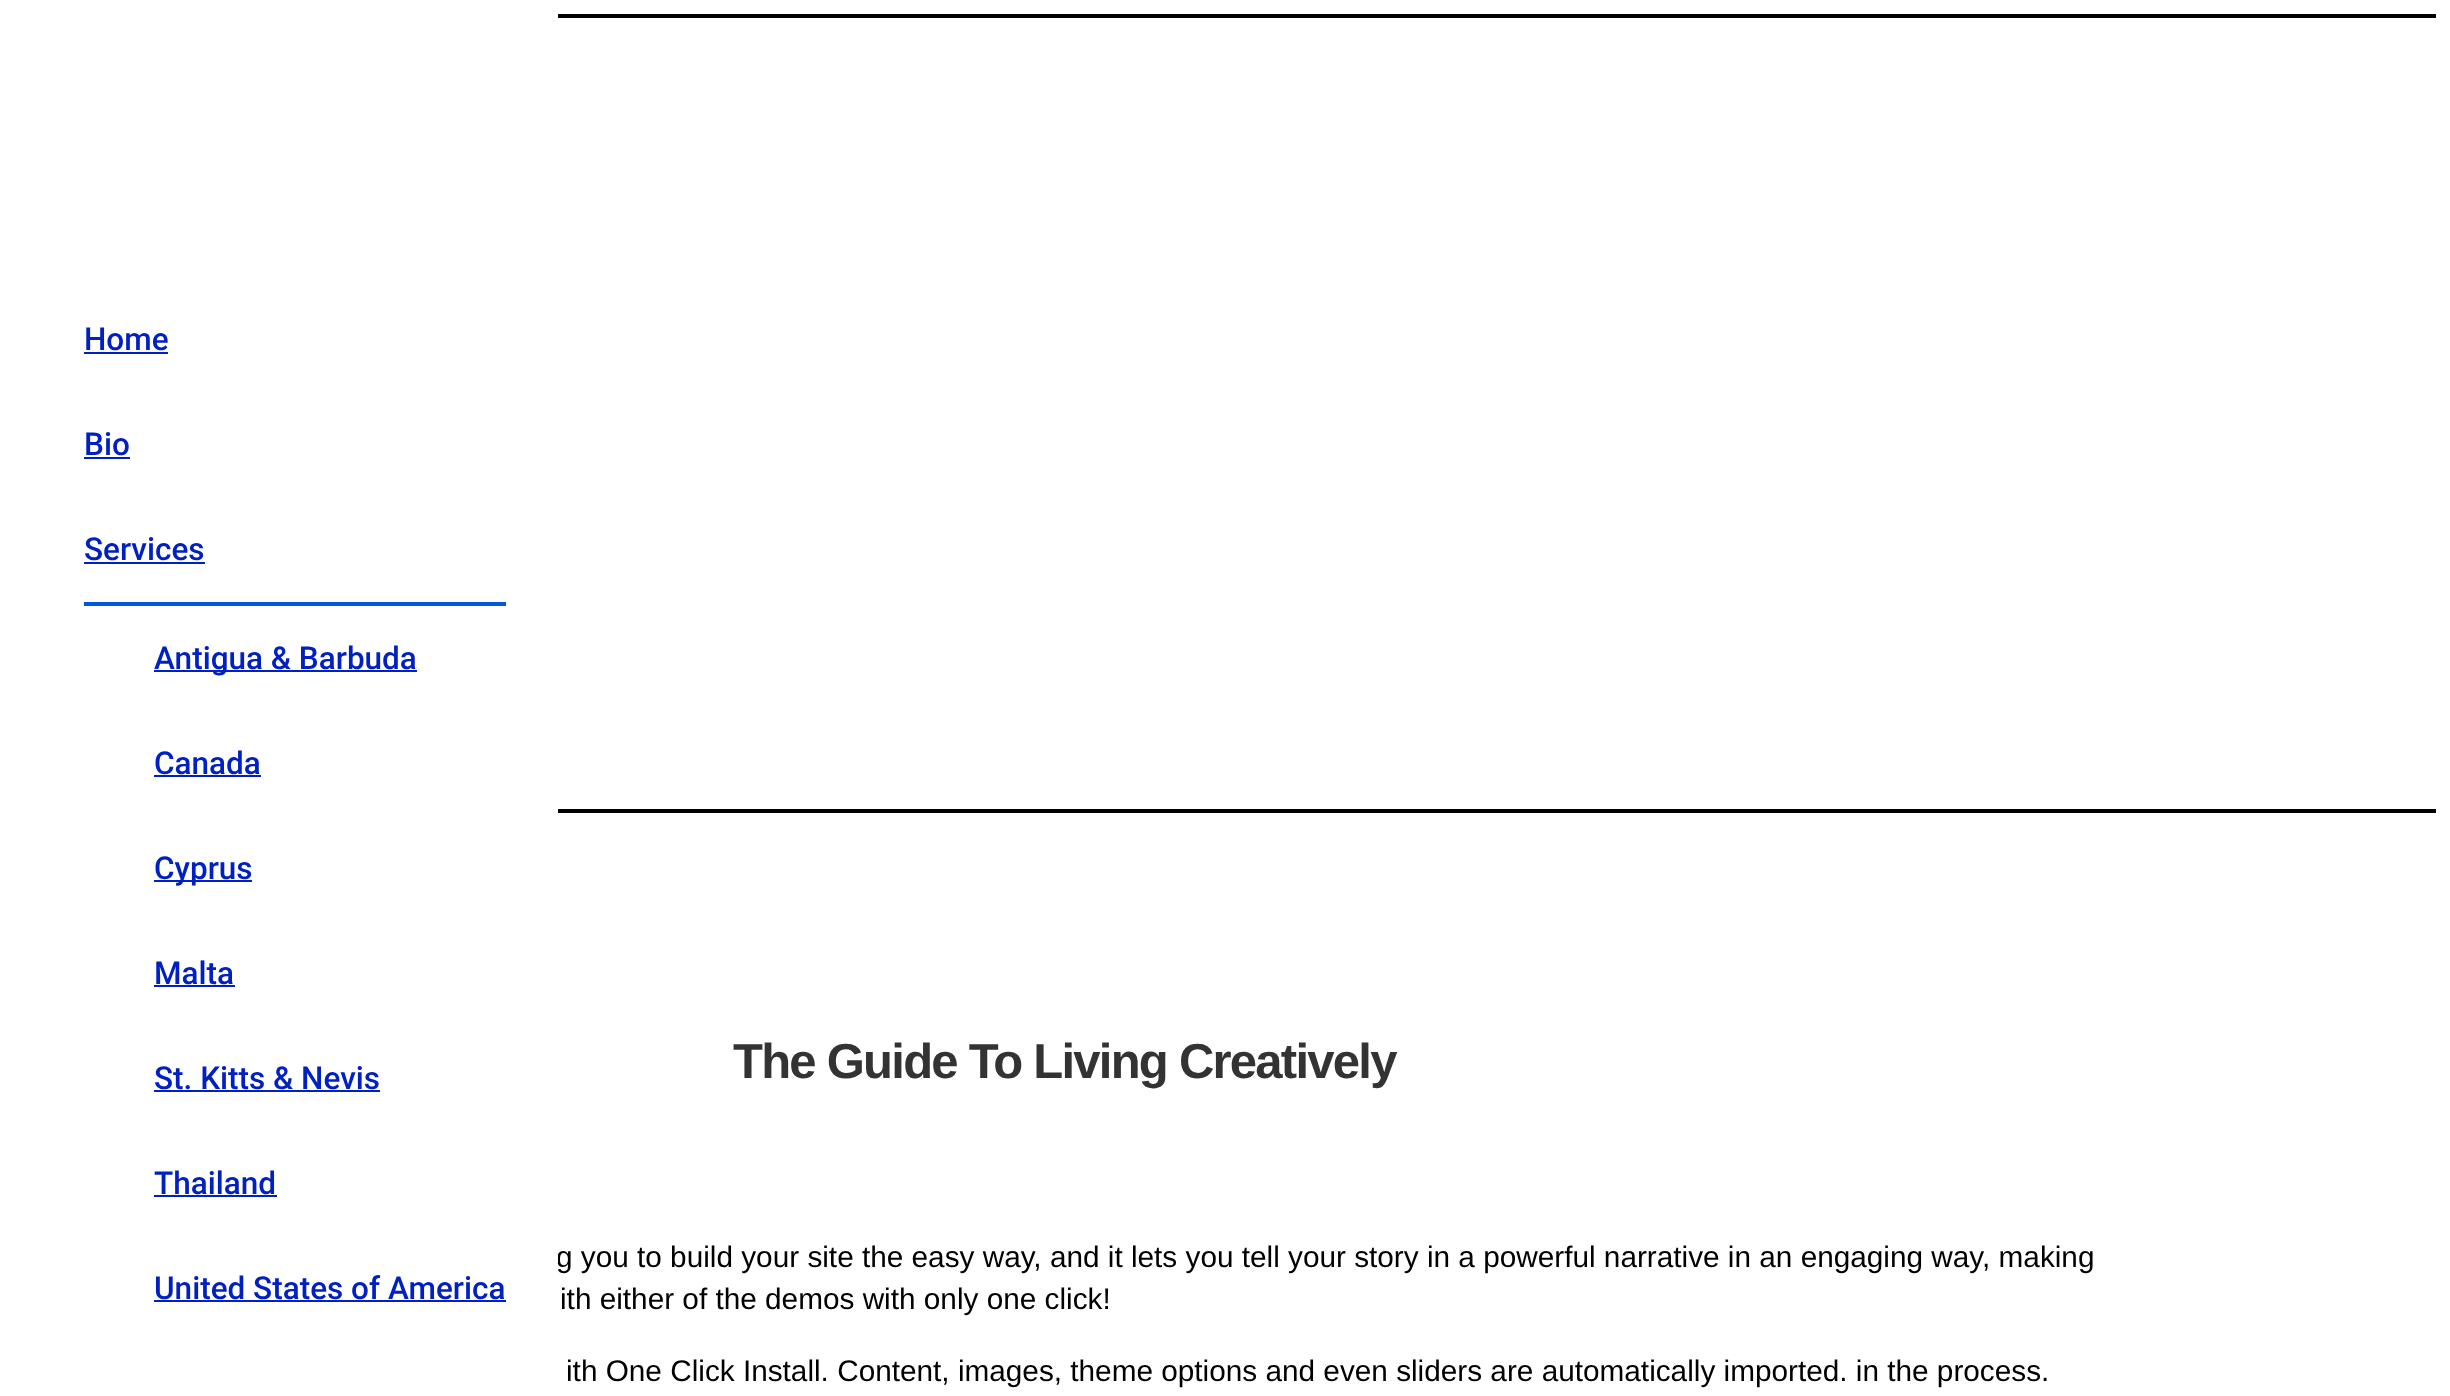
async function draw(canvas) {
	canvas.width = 2450;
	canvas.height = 1396;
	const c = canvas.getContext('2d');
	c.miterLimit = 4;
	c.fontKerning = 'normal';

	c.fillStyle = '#fff';
	c.fillRect(0, 0, 2450, 1396);
	c.font = '29.75px Liberation Sans';
	c.fillStyle = '#000';
	c.fillText('g you to build your site the easy way, and it lets you tell your story in a powerful narrative in an engaging way, making', 556, 1267);
	c.fillStyle = '#fff';
	c.fillRect(557, 1255, 1, 8);
	c.font = '500 31.5px Roboto';
	c.fillStyle = '#0020c1';
	c.fillText('Home', 84, 350);
	c.fillRect(84, 352, 84, 2);
	c.fillText('Bio', 84, 455);
	c.fillRect(84, 457, 46, 2);
	c.fillText('Services', 84, 560);
	for (const [x, y, w, h, color] of [
		[84, 562, 121, 2, '#0020c1'],
		[84, 602, 422, 4, '#0058dd'],
		[154, 670, 263, 2, '#0020c1'],
	]) {
		c.fillStyle = color;
		c.fillRect(x, y, w, h);
	}
	c.fillText('Antigua & Barbuda', 154, 669);
	c.fillText('Canada', 154, 774);
	c.fillRect(154, 775, 107, 2);
	c.fillRect(154, 880, 98, 2);
	c.fillText('Cyprus', 154, 879);
	c.fillText('Malta', 154, 984);
	c.fillRect(154, 985, 81, 2);
	c.fillText('St. Kitts & Nevis', 154, 1089);
	c.fillRect(154, 1090, 226, 2);
	c.fillText('Thailand', 154, 1194);
	c.fillRect(154, 1195, 123, 2);
	c.fillText('United States of America', 154, 1299);
	for (const [x, y, w, h, color] of [
		[154, 1300, 352, 2, '#0020c1'],
		[558, 14, 1878, 4, '#000'],
		[558, 809, 1878, 4, '#000'],
	]) {
		c.fillStyle = color;
		c.fillRect(x, y, w, h);
	}
	c.letterSpacing = '-1.75px';
	c.font = 'bold 49px Liberation Sans';
	c.fillStyle = '#333';
	c.fillText('The Guide To Living Creatively', 733, 1078);
	c.letterSpacing = '0px';
	c.font = '29.75px Liberation Sans';
	c.fillStyle = '#000';
	c.fillText('ith either of the demos with only one click!', 560, 1309);
	c.fillText('ith One Click Install. Content, images, theme options and even sliders are automatically imported. in the process.', 566, 1381);
}

draw(document.querySelector('canvas'));
